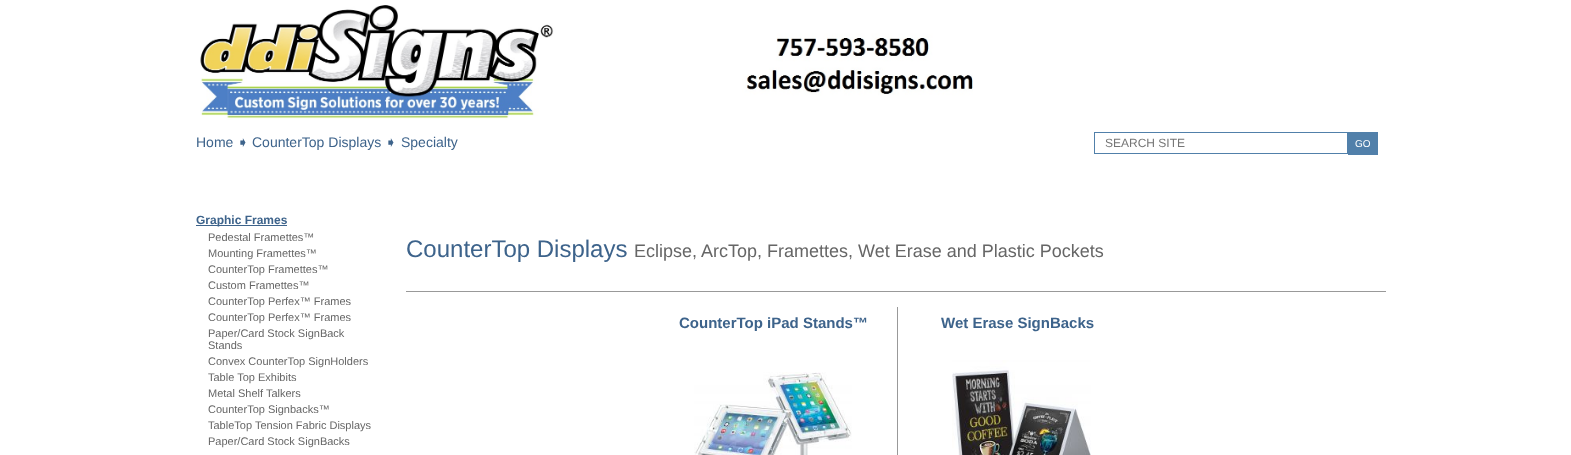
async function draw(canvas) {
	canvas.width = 1571;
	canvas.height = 455;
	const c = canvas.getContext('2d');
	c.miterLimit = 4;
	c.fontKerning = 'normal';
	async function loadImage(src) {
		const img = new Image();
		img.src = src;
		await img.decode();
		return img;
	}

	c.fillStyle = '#fff';
	c.fillRect(0, 0, 1571, 455);
	c.drawImage(await loadImage('img1.png'), 200, 5, 773, 115);
	c.font = '14px Liberation Sans';
	c.fillStyle = '#3d638b';
	c.fillText('Home', 196, 147);
	c.font = '14px DejaVu Sans';
	c.fillText('➧', 237, 147);
	c.font = '14px Liberation Sans';
	c.fillText('CounterTop Displays', 252, 147);
	c.font = '14px DejaVu Sans';
	c.fillText('➧', 385, 147);
	c.font = '14px Liberation Sans';
	c.fillText('Specialty', 401, 147);
	c.strokeStyle = '#5180aa';
	c.strokeRect(1094.5, 132.5, 253, 21);
	c.font = '12px Liberation Sans';
	c.fillStyle = '#757575';
	c.fillText('SEARCH SITE', 1105, 147);
	c.fillStyle = '#5180aa';
	c.fillRect(1348, 132, 30, 23);
	c.font = '10px Liberation Sans';
	c.fillStyle = '#fff';
	c.fillText('GO', 1355, 147);
	c.fillStyle = '#3d638b';
	c.fillRect(196, 225, 91, 1);
	c.font = 'bold 12px Liberation Sans';
	c.fillText('Graphic Frames', 196, 224);
	c.font = '11px Liberation Sans';
	c.fillStyle = '#666';
	for (const [text, x, y] of [
		['Pedestal Framettes™', 208, 241],
		['Mounting Framettes™', 208, 257],
		['CounterTop Framettes™', 208, 273],
		['Custom Framettes™', 208, 289],
		['CounterTop Perfex™ Frames', 208, 305],
		['CounterTop Perfex™ Frames', 208, 321],
		['Paper/Card Stock SignBack', 208, 337],
		['Stands', 208, 349],
		['Convex CounterTop SignHolders', 208, 365],
		['Table Top Exhibits', 208, 381],
		['Metal Shelf Talkers', 208, 397],
		['CounterTop Signbacks™', 208, 413],
		['TableTop Tension Fabric Displays', 208, 429],
		['Paper/Card Stock SignBacks', 208, 445],
	]) {
		c.fillText(text, x, y);
	}
	c.font = '24px Liberation Sans';
	c.fillStyle = '#3d638b';
	c.fillText('CounterTop Displays', 406, 257);
	c.font = '18px Liberation Sans';
	c.fillStyle = '#666';
	c.fillText('Eclipse, ArcTop, Framettes, Wet Erase and Plastic Pockets', 634, 257);
	c.fillStyle = '#999';
	c.fillRect(406, 291, 980, 1);
	c.font = 'bold 15px Liberation Sans';
	c.fillStyle = '#3d638b';
	c.fillText('CounterTop iPad Stands™', 679, 328);
	c.drawImage(await loadImage('img2.png'), 694, 372, 158, 83);
	c.fillStyle = '#999';
	c.fillRect(897, 307, 1, 148);
	c.fillStyle = '#3d638b';
	c.fillText('Wet Erase SignBacks', 941, 328);
	c.drawImage(await loadImage('img3.png'), 952, 360, 139, 95);
}

draw(document.querySelector('canvas'));
